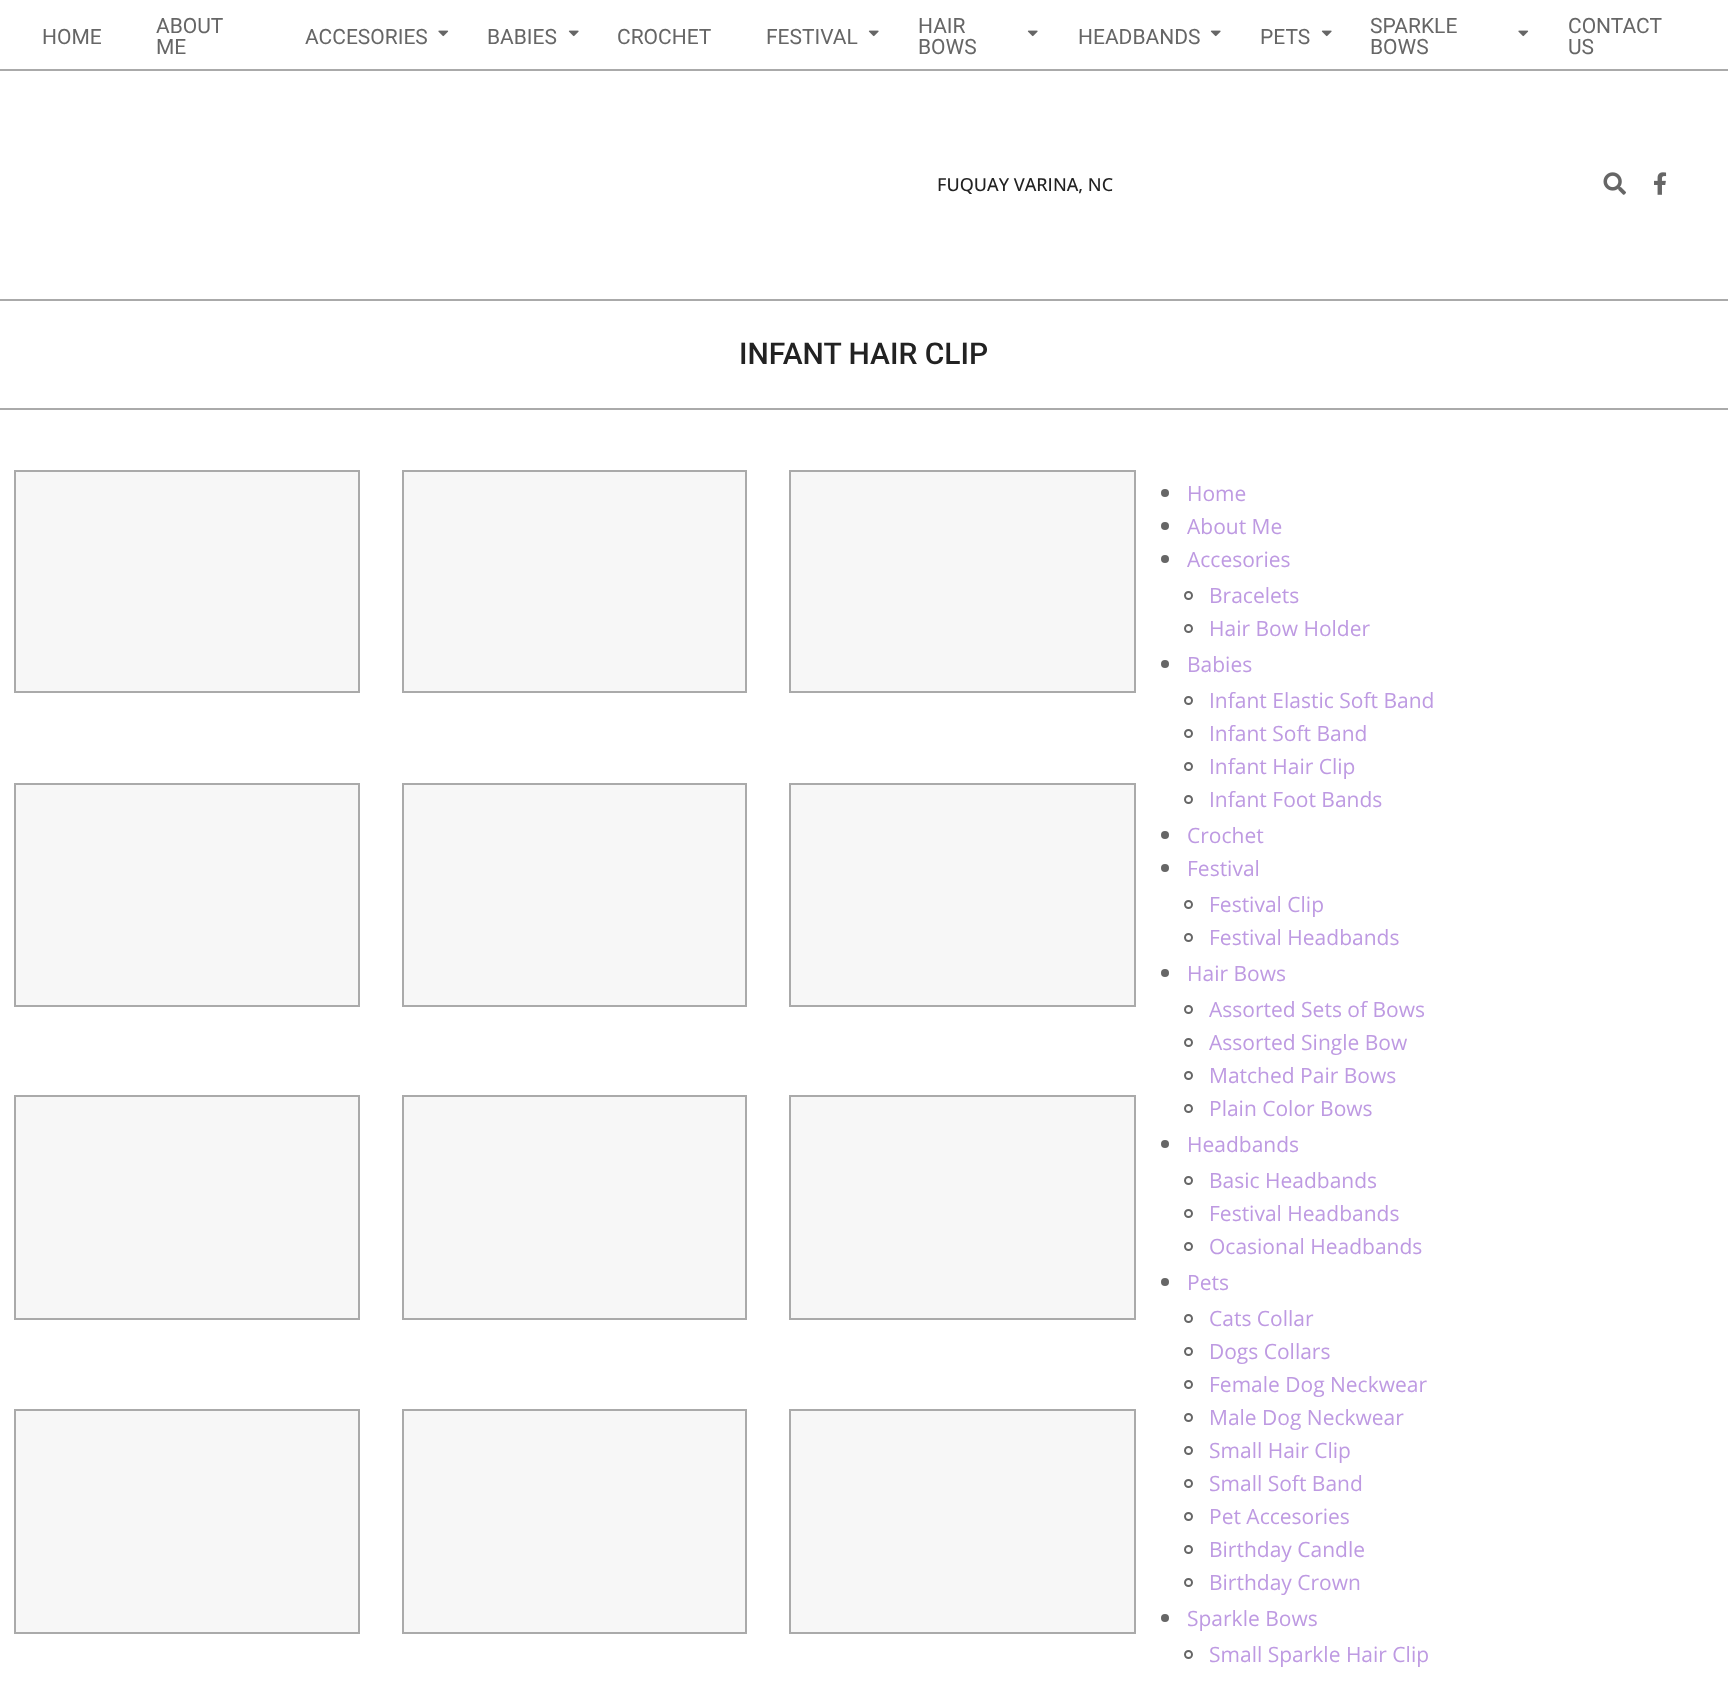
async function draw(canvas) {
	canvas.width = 1728;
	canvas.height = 1681;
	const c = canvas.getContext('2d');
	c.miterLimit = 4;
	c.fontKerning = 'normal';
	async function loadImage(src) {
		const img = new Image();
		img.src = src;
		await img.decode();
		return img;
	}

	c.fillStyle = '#fff';
	c.fillRect(0, 0, 1728, 1681);
	c.fillStyle = '#aaa';
	c.fillRect(0, 69, 1728, 2);
	c.font = '21px Roboto';
	c.fillStyle = '#666';
	for (const [text, x, y] of [
		['HOME', 42, 44],
		['ABOUT', 156, 33],
		['ME', 156, 54],
		['ACCESORIES', 305, 44],
	]) {
		c.fillText(text, x, y);
	}
	c.drawImage(await loadImage('img1.png'), 438, 30, 11, 7);
	c.fillText('BABIES', 487, 44);
	c.drawImage(await loadImage('img2.png'), 568, 30, 11, 7);
	c.fillText('CROCHET', 617, 44);
	c.fillText('FESTIVAL', 766, 44);
	c.drawImage(await loadImage('img2.png'), 868, 30, 11, 7);
	c.fillText('HAIR', 918, 33);
	c.fillText('BOWS', 918, 54);
	c.drawImage(await loadImage('img2.png'), 1027, 30, 11, 7);
	c.fillText('HEADBANDS', 1078, 44);
	c.drawImage(await loadImage('img2.png'), 1210, 30, 11, 7);
	c.fillText('PETS', 1260, 44);
	c.drawImage(await loadImage('img2.png'), 1321, 30, 11, 7);
	c.fillText('SPARKLE', 1370, 33);
	c.fillText('BOWS', 1370, 54);
	c.drawImage(await loadImage('img1.png'), 1518, 30, 11, 7);
	c.fillText('CONTACT', 1568, 33);
	c.fillText('US', 1568, 54);
	c.fillStyle = '#aaa';
	c.fillRect(0, 299, 1728, 2);
	c.font = '500 18px Open Sans';
	c.fillStyle = '#222';
	c.fillText('FUQUAY VARINA, NC', 937, 191);
	c.drawImage(await loadImage('img3.png'), 1603, 172, 23, 23);
	c.drawImage(await loadImage('img4.png'), 1654, 172, 13, 23);
	c.fillStyle = '#aaa';
	c.fillRect(0, 408, 1728, 2);
	c.font = '500 30px Roboto';
	c.fillStyle = '#222';
	c.fillText('INFANT HAIR CLIP', 739, 364);
	c.fillStyle = '#f7f7f7';
	c.beginPath();
	c.rect(15, 471, 344, 221);
	c.fill();
	c.strokeStyle = '#aaa';
	c.lineWidth = 2;
	c.stroke();
	c.beginPath();
	c.rect(403, 471, 343, 221);
	c.fill();
	c.stroke();
	c.beginPath();
	c.rect(790, 471, 345, 221);
	c.fill();
	c.stroke();
	c.beginPath();
	c.rect(15, 784, 344, 222);
	c.fill();
	c.stroke();
	c.beginPath();
	c.rect(403, 784, 343, 222);
	c.fill();
	c.stroke();
	c.beginPath();
	c.rect(790, 784, 345, 222);
	c.fill();
	c.stroke();
	c.beginPath();
	c.rect(15, 1096, 344, 223);
	c.fill();
	c.stroke();
	c.beginPath();
	c.rect(403, 1096, 343, 223);
	c.fill();
	c.stroke();
	c.beginPath();
	c.rect(790, 1096, 345, 223);
	c.fill();
	c.stroke();
	c.beginPath();
	c.rect(15, 1410, 344, 223);
	c.fill();
	c.stroke();
	c.beginPath();
	c.rect(403, 1410, 343, 223);
	c.fill();
	c.stroke();
	c.beginPath();
	c.rect(790, 1410, 345, 223);
	c.fill();
	c.stroke();
	c.fillStyle = '#666';
	c.beginPath();
	c.arc(1165, 493, 4, 0, 2 * Math.PI);
	c.fill();
	c.font = '21px Open Sans';
	c.fillStyle = '#be9ae2';
	c.fillText('Home', 1187, 501);
	c.fillStyle = '#666';
	c.beginPath();
	c.arc(1165, 526, 4, 0, 2 * Math.PI);
	c.fill();
	c.fillStyle = '#be9ae2';
	c.fillText('About Me', 1187, 534);
	c.fillStyle = '#666';
	c.beginPath();
	c.arc(1165, 559, 4, 0, 2 * Math.PI);
	c.fill();
	c.fillStyle = '#be9ae2';
	c.fillText('Accesories', 1187, 567);
	c.beginPath();
	c.arc(1188.5, 595.5, 3.5, 0, 2 * Math.PI);
	c.strokeStyle = '#666';
	c.stroke();
	c.fillText('Bracelets', 1209, 603);
	c.beginPath();
	c.arc(1188.5, 628.5, 3.5, 0, 2 * Math.PI);
	c.stroke();
	c.fillText('Hair Bow Holder', 1209, 636);
	c.fillStyle = '#666';
	c.beginPath();
	c.arc(1165, 664, 4, 0, 2 * Math.PI);
	c.fill();
	c.fillStyle = '#be9ae2';
	c.fillText('Babies', 1187, 672);
	c.beginPath();
	c.arc(1188.5, 700.5, 3.5, 0, 2 * Math.PI);
	c.stroke();
	c.fillText('Infant Elastic Soft Band', 1209, 708);
	c.beginPath();
	c.arc(1188.5, 733.5, 3.5, 0, 2 * Math.PI);
	c.stroke();
	c.fillText('Infant Soft Band', 1209, 741);
	c.beginPath();
	c.arc(1188.5, 766.5, 3.5, 0, 2 * Math.PI);
	c.stroke();
	c.fillText('Infant Hair Clip', 1209, 774);
	c.beginPath();
	c.arc(1188.5, 799.5, 3.5, 0, 2 * Math.PI);
	c.stroke();
	c.fillText('Infant Foot Bands', 1209, 807);
	c.fillStyle = '#666';
	c.beginPath();
	c.arc(1165, 835, 4, 0, 2 * Math.PI);
	c.fill();
	c.fillStyle = '#be9ae2';
	c.fillText('Crochet', 1187, 843);
	c.fillStyle = '#666';
	c.beginPath();
	c.arc(1165, 868, 4, 0, 2 * Math.PI);
	c.fill();
	c.fillStyle = '#be9ae2';
	c.fillText('Festival', 1187, 876);
	c.beginPath();
	c.arc(1188.5, 904.5, 3.5, 0, 2 * Math.PI);
	c.stroke();
	c.fillText('Festival Clip', 1209, 912);
	c.beginPath();
	c.arc(1188.5, 937.5, 3.5, 0, 2 * Math.PI);
	c.stroke();
	c.fillText('Festival Headbands', 1209, 945);
	c.fillStyle = '#666';
	c.beginPath();
	c.arc(1165, 973, 4, 0, 2 * Math.PI);
	c.fill();
	c.fillStyle = '#be9ae2';
	c.fillText('Hair Bows', 1187, 981);
	c.beginPath();
	c.arc(1188.5, 1009.5, 3.5, 0, 2 * Math.PI);
	c.stroke();
	c.fillText('Assorted Sets of Bows', 1209, 1017);
	c.beginPath();
	c.arc(1188.5, 1042.5, 3.5, 0, 2 * Math.PI);
	c.stroke();
	c.fillText('Assorted Single Bow', 1209, 1050);
	c.beginPath();
	c.arc(1188.5, 1075.5, 3.5, 0, 2 * Math.PI);
	c.stroke();
	c.fillText('Matched Pair Bows', 1209, 1083);
	c.beginPath();
	c.arc(1188.5, 1108.5, 3.5, 0, 2 * Math.PI);
	c.stroke();
	c.fillText('Plain Color Bows', 1209, 1116);
	c.fillStyle = '#666';
	c.beginPath();
	c.arc(1165, 1144, 4, 0, 2 * Math.PI);
	c.fill();
	c.fillStyle = '#be9ae2';
	c.fillText('Headbands', 1187, 1152);
	c.beginPath();
	c.arc(1188.5, 1180.5, 3.5, 0, 2 * Math.PI);
	c.stroke();
	c.fillText('Basic Headbands', 1209, 1188);
	c.beginPath();
	c.arc(1188.5, 1213.5, 3.5, 0, 2 * Math.PI);
	c.stroke();
	c.fillText('Festival Headbands', 1209, 1221);
	c.beginPath();
	c.arc(1188.5, 1246.5, 3.5, 0, 2 * Math.PI);
	c.stroke();
	c.fillText('Ocasional Headbands', 1209, 1254);
	c.fillStyle = '#666';
	c.beginPath();
	c.arc(1165, 1282, 4, 0, 2 * Math.PI);
	c.fill();
	c.fillStyle = '#be9ae2';
	c.fillText('Pets', 1187, 1290);
	c.beginPath();
	c.arc(1188.5, 1318.5, 3.5, 0, 2 * Math.PI);
	c.stroke();
	c.fillText('Cats Collar', 1209, 1326);
	c.beginPath();
	c.arc(1188.5, 1351.5, 3.5, 0, 2 * Math.PI);
	c.stroke();
	c.fillText('Dogs Collars', 1209, 1359);
	c.beginPath();
	c.arc(1188.5, 1384.5, 3.5, 0, 2 * Math.PI);
	c.stroke();
	c.fillText('Female Dog Neckwear', 1209, 1392);
	c.beginPath();
	c.arc(1188.5, 1417.5, 3.5, 0, 2 * Math.PI);
	c.stroke();
	c.fillText('Male Dog Neckwear', 1209, 1425);
	c.beginPath();
	c.arc(1188.5, 1450.5, 3.5, 0, 2 * Math.PI);
	c.stroke();
	c.fillText('Small Hair Clip', 1209, 1458);
	c.beginPath();
	c.arc(1188.5, 1483.5, 3.5, 0, 2 * Math.PI);
	c.stroke();
	c.fillText('Small Soft Band', 1209, 1491);
	c.beginPath();
	c.arc(1188.5, 1516.5, 3.5, 0, 2 * Math.PI);
	c.stroke();
	c.fillText('Pet Accesories', 1209, 1524);
	c.beginPath();
	c.arc(1188.5, 1549.5, 3.5, 0, 2 * Math.PI);
	c.stroke();
	c.fillText('Birthday Candle', 1209, 1557);
	c.beginPath();
	c.arc(1188.5, 1582.5, 3.5, 0, 2 * Math.PI);
	c.stroke();
	c.fillText('Birthday Crown', 1209, 1590);
	c.fillStyle = '#666';
	c.beginPath();
	c.arc(1165, 1618, 4, 0, 2 * Math.PI);
	c.fill();
	c.fillStyle = '#be9ae2';
	c.fillText('Sparkle Bows', 1187, 1626);
	c.beginPath();
	c.arc(1188.5, 1654.5, 3.5, 0, 2 * Math.PI);
	c.stroke();
	c.fillText('Small Sparkle Hair Clip', 1209, 1662);
}

draw(document.querySelector('canvas'));
